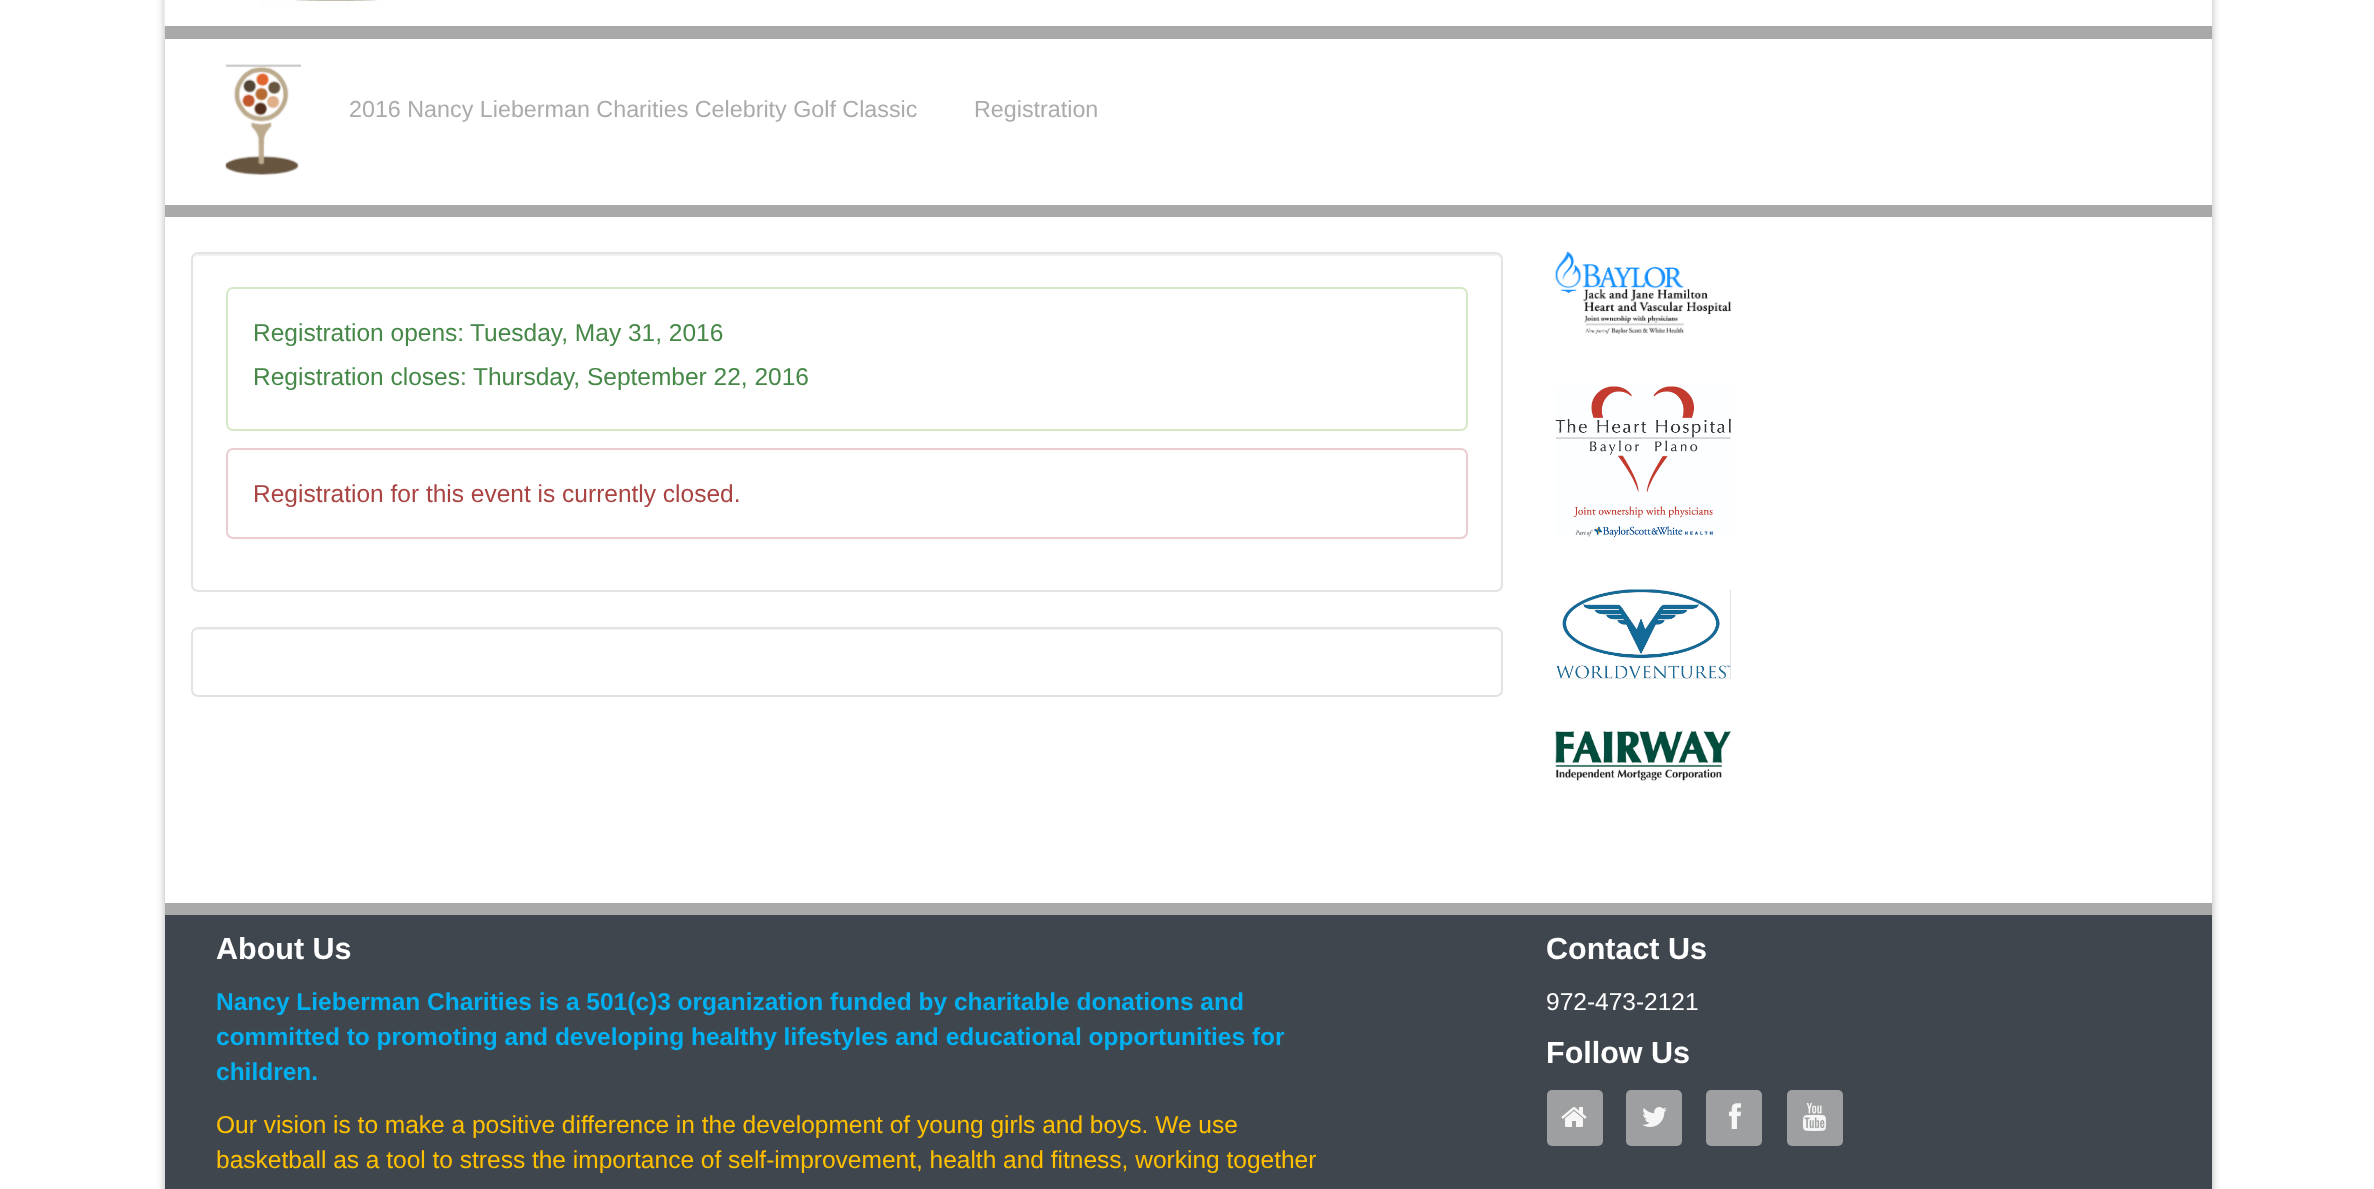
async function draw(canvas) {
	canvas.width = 2374;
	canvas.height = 1189;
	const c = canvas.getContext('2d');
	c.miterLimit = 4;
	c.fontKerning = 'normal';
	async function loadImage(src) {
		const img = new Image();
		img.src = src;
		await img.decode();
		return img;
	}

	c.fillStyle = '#fff';
	c.fillRect(0, 0, 2374, 1189);
	c.save();
	c.beginPath();
	c.moveTo(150, 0);
	c.lineTo(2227, 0);
	c.lineTo(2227, 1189);
	c.lineTo(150, 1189);
	c.closePath();
	c.moveTo(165, -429);
	c.lineTo(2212, -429);
	c.lineTo(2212, 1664);
	c.lineTo(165, 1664);
	c.closePath();
	c.clip('evenodd');
	c.fillStyle = '#0000004d';
	c.filter = 'blur(4.5px)';
	c.beginPath();
	c.rect(165, -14, 2047, 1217);
	c.fill();
	c.filter = 'none';
	c.restore();
	c.drawImage(await loadImage('img1.png'), 164, 0, 213, 26);
	c.fillStyle = '#a9a9a9';
	c.fillRect(165, 26, 2047, 13);
	c.drawImage(await loadImage('img2.png'), 225, 64, 76, 112);
	c.font = '23.3px Liberation Sans';
	c.fillStyle = '#ababab';
	c.fillText('2016 Nancy Lieberman Charities Celebrity Golf Classic', 349, 117);
	c.fillText('Registration', 974, 117);
	c.fillStyle = '#a9a9a9';
	c.fillRect(165, 205, 2047, 12);
	c.fillStyle = '#f2f2f2';
	c.beginPath();
	c.moveTo(198, 256);
	c.lineTo(1496, 256);
	c.bezierCurveTo(1499, 256, 1502, 258, 1502, 261);
	c.lineTo(1502, 259);
	c.bezierCurveTo(1502, 256, 1500, 254, 1497, 254);
	c.lineTo(198, 254);
	c.bezierCurveTo(196, 254, 193, 256, 193, 258);
	c.bezierCurveTo(194, 257, 196, 256, 198, 256);
	c.closePath();
	c.fill();
	c.beginPath();
	c.roundRect(192, 253, 1310, 338, 6);
	c.strokeStyle = '#e3e3e3';
	c.lineWidth = 2;
	c.stroke();
	c.beginPath();
	c.roundRect(227, 288, 1240, 142, 6);
	c.strokeStyle = '#d6e9c6';
	c.stroke();
	c.font = '24.5px Liberation Sans';
	c.fillStyle = '#468847';
	for (const [text, x, y] of [
		['Registration opens:', 253, 341],
		['Tuesday, May 31, 2016', 470, 341],
		['Registration closes:', 253, 385],
		['Thursday, September 22, 2016', 473, 385],
	]) {
		c.fillText(text, x, y);
	}
	c.beginPath();
	c.roundRect(227, 449, 1240, 89, 6);
	c.strokeStyle = '#ebccd1';
	c.stroke();
	c.fillStyle = '#a94442';
	c.fillText('Registration for this event is currently closed.', 253, 502);
	c.fillStyle = '#f2f2f2';
	c.beginPath();
	c.moveTo(198, 630);
	c.lineTo(1496, 630);
	c.bezierCurveTo(1499, 630, 1502, 632, 1502, 635);
	c.lineTo(1502, 633);
	c.bezierCurveTo(1502, 630, 1500, 628, 1497, 628);
	c.lineTo(198, 628);
	c.bezierCurveTo(196, 628, 193, 630, 193, 632);
	c.bezierCurveTo(194, 631, 196, 630, 198, 630);
	c.closePath();
	c.fill();
	c.beginPath();
	c.roundRect(192, 628, 1310, 68, 6);
	c.strokeStyle = '#e3e3e3';
	c.stroke();
	c.drawImage(await loadImage('img3.png'), 1555, 251, 176, 83);
	c.drawImage(await loadImage('img4.png'), 1555, 386, 176, 151);
	c.drawImage(await loadImage('img5.png'), 1556, 589, 175, 90);
	c.drawImage(await loadImage('img6.png'), 1555, 731, 176, 50);
	c.fillStyle = '#3f464d';
	c.fillRect(165, 915, 2047, 274);
	c.fillStyle = '#a9a9a9';
	c.fillRect(165, 903, 2047, 12);
	c.font = 'bold 30.5px Liberation Sans';
	c.fillStyle = '#fff';
	c.fillText('About Us', 216, 959);
	c.font = 'bold 24.5px Liberation Sans';
	c.fillStyle = '#00b0f0';
	for (const [text, x, y] of [
		['Nancy Lieberman Charities is a 501(c)3 organization funded by charitable donations and', 216, 1010],
		['committed to promoting and developing healthy lifestyles and educational opportunities for', 216, 1045],
		['children.', 216, 1080],
	]) {
		c.fillText(text, x, y);
	}
	c.font = '24.5px Liberation Sans';
	c.fillStyle = '#ffc000';
	c.fillText('Our vision is to make a positive difference in the development of young girls and boys. We use', 216, 1133);
	c.fillText('basketball as a tool to stress the importance of self-improvement, health and fitness, working together', 216, 1168);
	c.font = 'bold 30.5px Liberation Sans';
	c.fillStyle = '#fff';
	c.fillText('Contact Us', 1546, 959);
	c.font = '24.5px Liberation Sans';
	c.fillText('972-473-2121', 1546, 1010);
	c.font = 'bold 30.5px Liberation Sans';
	c.fillText('Follow Us', 1546, 1063);
	c.fillStyle = '#9e9fa0';
	c.beginPath();
	c.roundRect(1547, 1090, 56, 56, 5);
	c.fill();
	c.drawImage(await loadImage('img7.png'), 1561, 1107, 26, 20);
	c.beginPath();
	c.roundRect(1626, 1090, 56, 56, 5);
	c.fill();
	c.drawImage(await loadImage('img8.png'), 1642, 1107, 25, 20);
	c.beginPath();
	c.roundRect(1706, 1090, 56, 56, 5);
	c.fill();
	c.drawImage(await loadImage('img9.png'), 1729, 1103, 12, 26);
	c.beginPath();
	c.roundRect(1787, 1090, 56, 56, 5);
	c.fill();
	c.drawImage(await loadImage('img10.png'), 1802, 1103, 25, 28);
}

draw(document.querySelector('canvas'));
